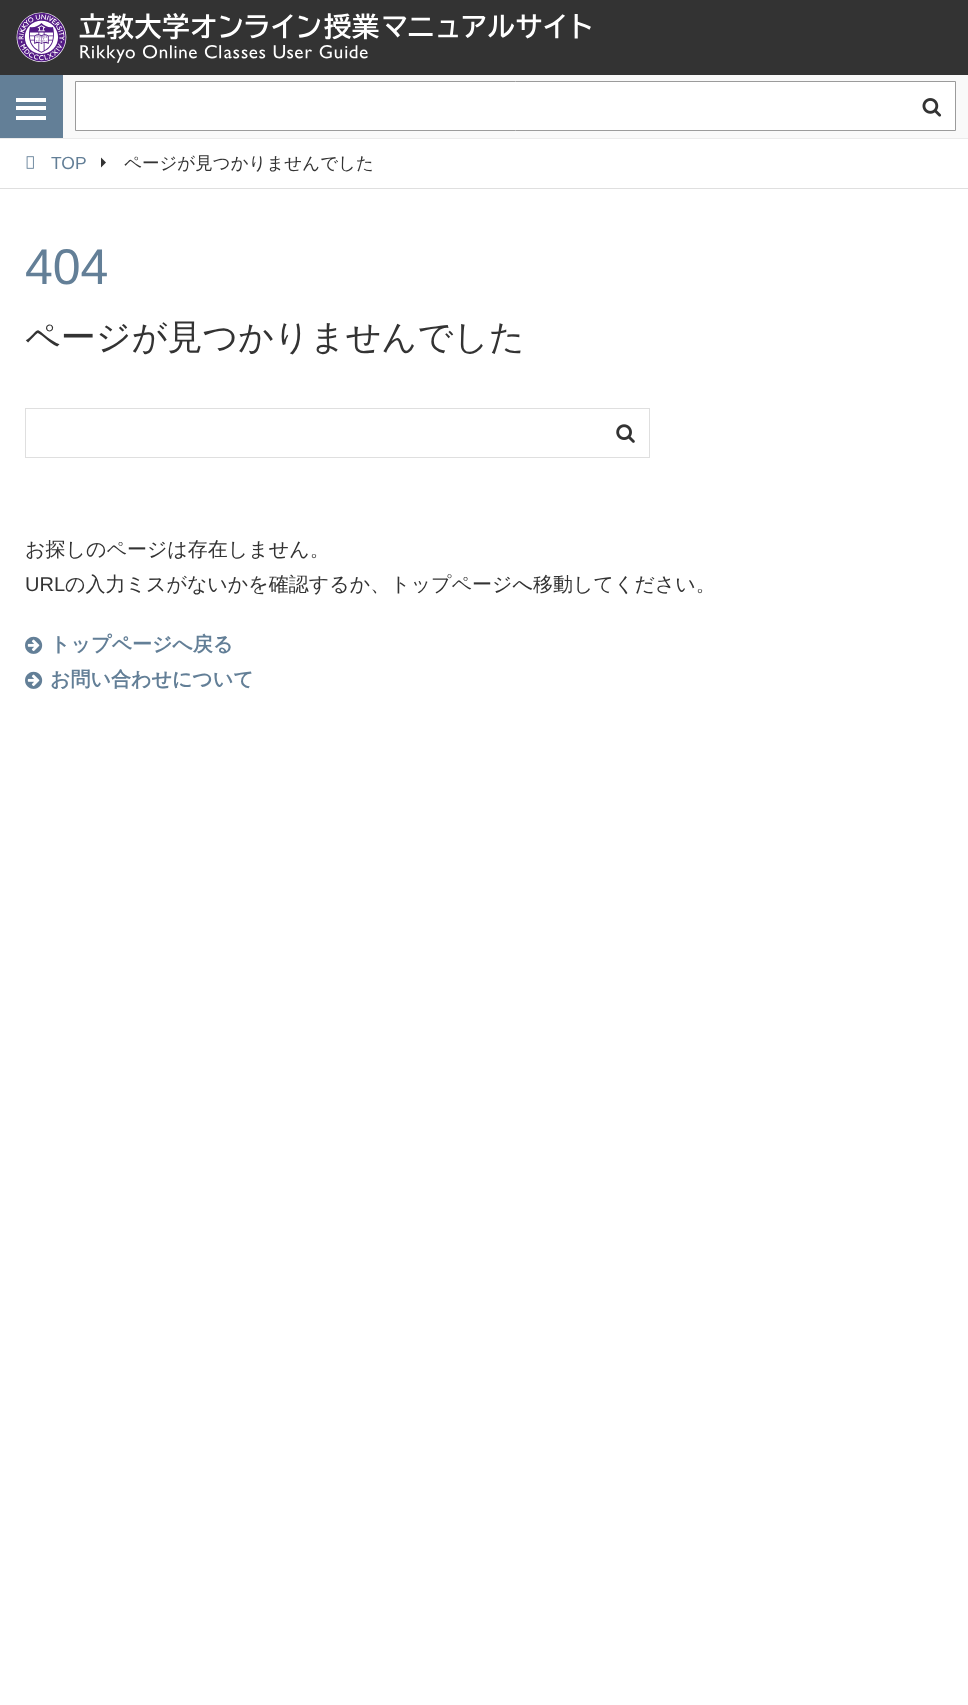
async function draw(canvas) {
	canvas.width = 968;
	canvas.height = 1705;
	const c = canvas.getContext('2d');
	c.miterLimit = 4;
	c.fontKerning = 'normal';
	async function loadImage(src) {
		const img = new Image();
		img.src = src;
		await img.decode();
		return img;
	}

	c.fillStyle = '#fff';
	c.fillRect(0, 0, 968, 1705);
	c.fillStyle = '#333';
	c.fillRect(0, 0, 968, 75);
	c.drawImage(await loadImage('img1.png'), 16, 12, 575, 51);
	for (const [x, y, w, h, color] of [
		[63, 75, 905, 63, '#f9f9f9'],
		[0, 138, 968, 1, '#ebebeb'],
		[0, 75, 63, 63, '#637f97'],
		[16, 106, 30, 4, '#fff'],
		[16, 98, 30, 4, '#fff'],
		[16, 116, 30, 4, '#fff'],
	]) {
		c.fillStyle = color;
		c.fillRect(x, y, w, h);
	}
	c.beginPath();
	c.rect(75.5, 81.5, 880, 49);
	c.fill();
	c.strokeStyle = '#9b9b9b';
	c.stroke();
	c.drawImage(await loadImage('img2.png'), 922, 98, 20, 19);
	c.fillStyle = '#dfdfdf';
	c.fillRect(0, 188, 968, 1);
	c.drawImage(await loadImage('img3.png'), 26, 156, 8, 13);
	c.font = '17.5px Liberation Sans';
	c.fillStyle = '#637f97';
	c.fillText('TOP', 51, 169);
	c.fillStyle = '#333';
	c.beginPath();
	c.moveTo(101, 167.5);
	c.lineTo(101, 157.5);
	c.lineTo(106, 162.5);
	c.closePath();
	c.fill();
	c.font = '500 17.5px WenQuanYi Zen Hei';
	c.fillText('ページが見つかりませんでした', 124, 169);
	c.font = '50px Liberation Sans';
	c.fillStyle = '#637f97';
	c.fillText('404', 25, 284);
	c.font = '500 35px WenQuanYi Zen Hei';
	c.fillStyle = '#333';
	c.fillText('ページが見つかりませんでした', 25, 349);
	c.strokeStyle = '#dfdfdf';
	c.strokeRect(25.5, 408.5, 624, 49);
	c.drawImage(await loadImage('img4.png'), 616, 424, 19, 19);
	c.font = '500 20px WenQuanYi Zen Hei';
	c.fillText('お探しのページは存在しません。', 25, 556);
	c.font = '20px Liberation Sans';
	c.fillText('URL', 25, 591);
	c.font = '500 20px WenQuanYi Zen Hei';
	c.fillText('の入力ミスがないかを確認するか、トップページへ移動してください。', 65, 591);
	c.drawImage(await loadImage('img5.png'), 25, 636, 18, 18);
	c.font = 'bold 20px WenQuanYi Zen Hei';
	c.fillStyle = '#637f97';
	c.fillText('トップページへ戻る', 50, 651);
	c.drawImage(await loadImage('img5.png'), 25, 671, 18, 18);
	c.fillText('お問い合わせについて', 50, 686);
}

draw(document.querySelector('canvas'));
